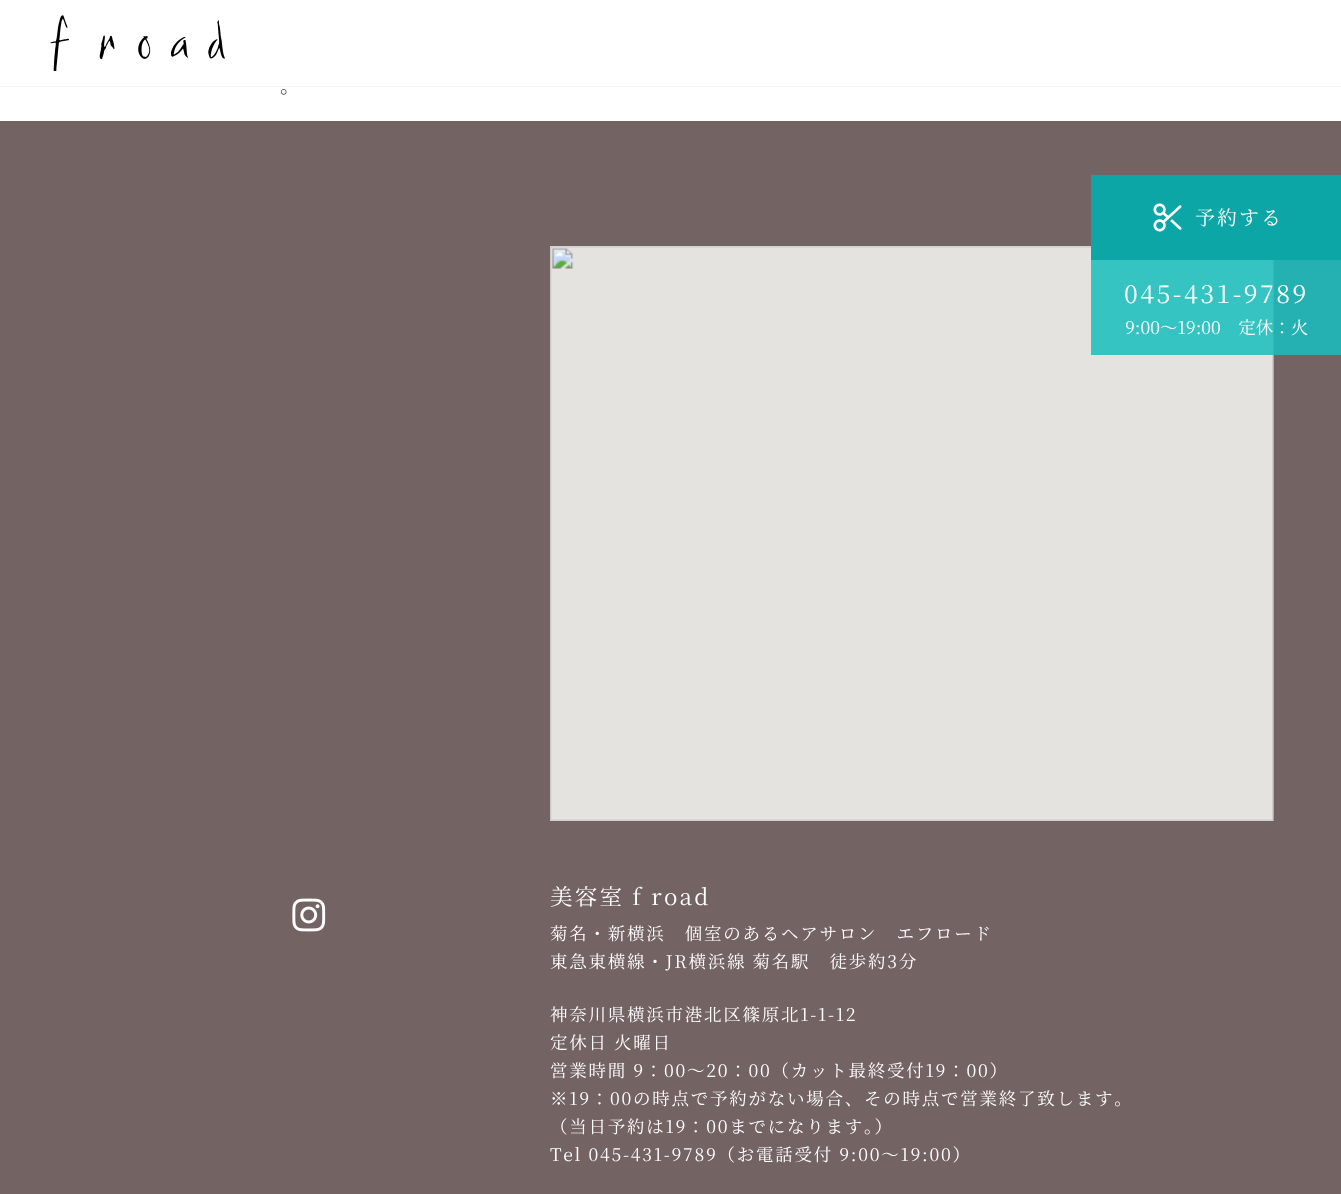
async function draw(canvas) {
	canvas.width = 1341;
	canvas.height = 1194;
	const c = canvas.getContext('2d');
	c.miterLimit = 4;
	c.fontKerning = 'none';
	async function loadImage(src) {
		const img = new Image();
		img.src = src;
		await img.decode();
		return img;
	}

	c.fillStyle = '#fff';
	c.fillRect(0, 0, 1341, 1194);
	c.font = '20px Noto Serif JP';
	c.fillStyle = '#333';
	c.fillText('。', 280, 93);
	c.fillStyle = '#f5f5f5';
	c.fillRect(0, 86, 1341, 1);
	c.drawImage(await loadImage('img1.png'), 50, 15, 175, 56);
	c.fillStyle = '#746363';
	c.fillRect(0, 121, 1341, 1073);
	c.drawImage(await loadImage('img4.png'), 550, 246, 724, 575);
	c.fillStyle = '#18bebed9';
	c.fillRect(1091, 260, 250, 95);
	c.fillStyle = '#0da6a6';
	c.fillRect(1091, 175, 250, 85);
	c.drawImage(await loadImage('img2.png'), 1153, 203, 29, 29);
	c.letterSpacing = '2px';
	c.fillStyle = '#fff';
	c.fillText('予約する', 1195, 225);
	c.letterSpacing = '2.5px';
	c.font = '25px Noto Serif JP';
	c.fillText('045-431-9789', 1124, 303);
	c.letterSpacing = '0px';
	c.font = '17.5px Noto Serif JP';
	c.fillText('9:00～19:00　定休：火', 1125, 334);
	c.drawImage(await loadImage('img3.png'), 292, 898, 34, 34);
	c.letterSpacing = '2.25px';
	c.font = '22.5px Noto Serif JP';
	c.fillText('美容室 f road', 550, 905);
	c.letterSpacing = '1.75px';
	c.font = '17.5px Noto Serif JP';
	for (const [text, x, y] of [
		['菊名・新横浜　個室のあるヘアサロン　エフロード', 550, 940],
		['東急東横線・JR横浜線 菊名駅　徒歩約3分', 550, 968],
		['神奈川県横浜市港北区篠原北1-1-12', 550, 1021],
		['定休日 火曜日', 550, 1049],
		['営業時間 9：00～20：00（カット最終受付19：00）', 550, 1077],
		['※19：00の時点で予約がない場合、その時点で営業終了致します。', 550, 1105],
		['（当日予約は19：00までになります。）', 550, 1133],
		['Tel 045-431-9789（お電話受付 9:00～19:00）', 550, 1161],
	]) {
		c.fillText(text, x, y);
	}
}

draw(document.querySelector('canvas'));
